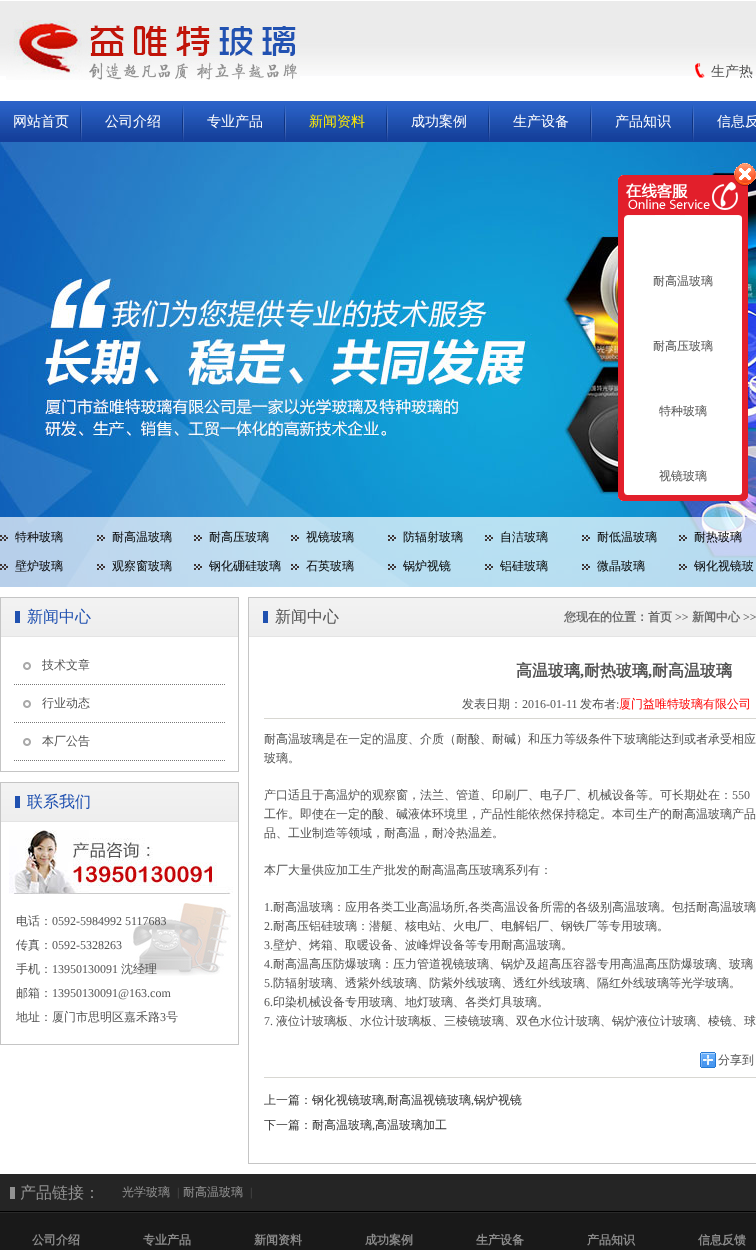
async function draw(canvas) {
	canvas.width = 756;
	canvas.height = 1250;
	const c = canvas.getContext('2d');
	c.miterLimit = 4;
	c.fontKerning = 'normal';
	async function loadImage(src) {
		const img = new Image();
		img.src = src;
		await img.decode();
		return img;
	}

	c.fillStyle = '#fff';
	c.fillRect(0, 0, 756, 1250);
	c.drawImage(await loadImage('img1.png'), 0, 1, 756, 75);
	c.drawImage(await loadImage('img2.png'), 6, 20, 294, 60);
	c.drawImage(await loadImage('img3.png'), 695, 63, 10, 15);
	c.font = '500 14px WenQuanYi Zen Hei';
	c.fillStyle = '#535353';
	c.fillText('生产热', 711, 76);
	c.drawImage(await loadImage('img4.png'), 0, 101, 756, 41);
	c.drawImage(await loadImage('img5.png'), 80, 105, 2, 36);
	c.fillStyle = '#fff';
	c.fillText('网站首页', 13, 126);
	c.drawImage(await loadImage('img5.png'), 182, 105, 2, 36);
	c.fillText('公司介绍', 105, 126);
	c.drawImage(await loadImage('img5.png'), 284, 105, 2, 36);
	c.fillText('专业产品', 207, 126);
	c.drawImage(await loadImage('img5.png'), 386, 105, 2, 36);
	c.fillStyle = '#fee902';
	c.fillText('新闻资料', 309, 126);
	c.drawImage(await loadImage('img5.png'), 488, 105, 2, 36);
	c.fillStyle = '#fff';
	c.fillText('成功案例', 411, 126);
	c.drawImage(await loadImage('img5.png'), 590, 105, 2, 36);
	c.fillText('生产设备', 513, 126);
	c.drawImage(await loadImage('img5.png'), 692, 105, 2, 36);
	c.fillText('产品知识', 615, 126);
	c.fillText('信息反', 717, 126);
	c.drawImage(await loadImage('img6.png'), 0, 142, 756, 445);
	c.fillStyle = '#ffffffb3';
	c.fillRect(0, 517, 756, 70);
	c.drawImage(await loadImage('img7.png'), 0, 535, 8, 6);
	c.font = '500 12px WenQuanYi Zen Hei';
	c.fillStyle = '#000';
	c.fillText('特种玻璃', 15, 541);
	c.drawImage(await loadImage('img8.png'), 97, 535, 8, 6);
	c.fillText('耐高温玻璃', 112, 541);
	c.drawImage(await loadImage('img9.png'), 194, 535, 8, 6);
	c.fillText('耐高压玻璃', 209, 541);
	c.drawImage(await loadImage('img10.png'), 291, 535, 8, 6);
	c.fillText('视镜玻璃', 306, 541);
	c.drawImage(await loadImage('img11.png'), 388, 535, 8, 6);
	c.fillText('防辐射玻璃', 403, 541);
	c.drawImage(await loadImage('img12.png'), 485, 535, 8, 6);
	c.fillText('自洁玻璃', 500, 541);
	c.drawImage(await loadImage('img13.png'), 582, 535, 8, 6);
	c.fillText('耐低温玻璃', 597, 541);
	c.drawImage(await loadImage('img14.png'), 679, 535, 8, 6);
	c.fillText('耐热玻璃', 694, 541);
	c.drawImage(await loadImage('img7.png'), 0, 564, 8, 6);
	c.fillText('壁炉玻璃', 15, 570);
	c.drawImage(await loadImage('img15.png'), 97, 564, 8, 6);
	c.fillText('观察窗玻璃', 112, 570);
	c.drawImage(await loadImage('img16.png'), 194, 564, 8, 6);
	c.fillText('钢化硼硅玻璃', 209, 570);
	c.drawImage(await loadImage('img17.png'), 291, 564, 8, 6);
	c.fillText('石英玻璃', 306, 570);
	c.drawImage(await loadImage('img18.png'), 388, 564, 8, 6);
	c.fillText('锅炉视镜', 403, 570);
	c.drawImage(await loadImage('img19.png'), 485, 564, 8, 6);
	c.fillText('铝硅玻璃', 500, 570);
	c.drawImage(await loadImage('img20.png'), 582, 564, 8, 6);
	c.fillText('微晶玻璃', 597, 570);
	c.drawImage(await loadImage('img21.png'), 679, 564, 8, 6);
	c.fillText('钢化视镜玻', 694, 570);
	c.drawImage(await loadImage('img22.png'), 1, 598, 237, 38);
	c.strokeStyle = '#c5c5c5';
	c.strokeRect(0.5, 597.5, 238, 174);
	c.fillStyle = '#2051b0';
	c.fillRect(15, 611, 5, 12);
	c.fillStyle = '#e4e4e4';
	c.fillRect(1, 636, 237, 1);
	c.font = '500 16px WenQuanYi Zen Hei';
	c.fillStyle = '#2051b0';
	c.fillText('新闻中心', 27, 622);
	c.drawImage(await loadImage('img23.png'), 23, 662, 8, 8);
	c.beginPath();
	c.moveTo(14, 684.5);
	c.lineTo(225, 684.5);
	c.strokeStyle = '#787878';
	c.setLineDash([1, 1]);
	c.stroke();
	c.font = '500 12px WenQuanYi Zen Hei';
	c.fillStyle = '#535353';
	c.fillText('技术文章', 42, 669);
	c.drawImage(await loadImage('img23.png'), 23, 700, 8, 8);
	c.beginPath();
	c.moveTo(14, 722.5);
	c.lineTo(225, 722.5);
	c.stroke();
	c.fillText('行业动态', 42, 707);
	c.drawImage(await loadImage('img23.png'), 23, 738, 8, 8);
	c.beginPath();
	c.moveTo(14, 760.5);
	c.lineTo(225, 760.5);
	c.stroke();
	c.fillText('本厂公告', 42, 745);
	c.drawImage(await loadImage('img22.png'), 1, 783, 237, 38);
	c.strokeStyle = '#c5c5c5';
	c.setLineDash([]);
	c.strokeRect(0.5, 782.5, 238, 262);
	c.fillStyle = '#2051b0';
	c.fillRect(15, 796, 5, 12);
	c.fillStyle = '#e4e4e4';
	c.fillRect(1, 821, 237, 1);
	c.font = '500 16px WenQuanYi Zen Hei';
	c.fillStyle = '#2051b0';
	c.fillText('联系我们', 27, 807);
	c.drawImage(await loadImage('img24.png'), 9, 830, 224, 64);
	c.drawImage(await loadImage('img25.png'), 133, 903, 98, 73);
	c.font = '500 12px WenQuanYi Zen Hei';
	c.fillStyle = '#535353';
	c.fillText('电话：', 16, 925);
	c.font = '12px Liberation Serif';
	c.fillText('0592-5984992 5117683', 52, 925);
	c.font = '500 12px WenQuanYi Zen Hei';
	c.fillText('传真：', 16, 949);
	c.font = '12px Liberation Serif';
	c.fillText('0592-5328263', 52, 949);
	c.font = '500 12px WenQuanYi Zen Hei';
	c.fillText('手机：', 16, 973);
	c.font = '12px Liberation Serif';
	c.fillText('13950130091', 52, 973);
	c.font = '500 12px WenQuanYi Zen Hei';
	c.fillText('沈经理', 121, 973);
	c.fillText('邮箱：', 16, 997);
	c.font = '12px Liberation Serif';
	c.fillText('13950130091@163.com', 52, 997);
	c.font = '500 12px WenQuanYi Zen Hei';
	c.fillText('地址：厦门市思明区嘉禾路', 16, 1021);
	c.font = '12px Liberation Serif';
	c.fillText('3', 160, 1021);
	c.font = '500 12px WenQuanYi Zen Hei';
	c.fillText('号', 166, 1021);
	c.drawImage(await loadImage('img26.png'), 249, 598, 507, 38);
	c.strokeRect(248.5, 597.5, 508, 566);
	c.fillStyle = '#2051b0';
	c.fillRect(263, 611, 5, 12);
	c.fillStyle = '#e4e4e4';
	c.fillRect(249, 636, 507, 1);
	c.font = '500 16px WenQuanYi Zen Hei';
	c.fillStyle = '#535353';
	c.fillText('新闻中心', 275, 622);
	c.font = 'bold 12px WenQuanYi Zen Hei';
	c.fillStyle = '#6a6a6a';
	c.fillText('您现在的位置：首页', 564, 621);
	c.font = 'bold 12px Liberation Serif';
	c.fillText('>>', 675, 621);
	c.font = 'bold 12px WenQuanYi Zen Hei';
	c.fillText('新闻中心', 692, 621);
	c.font = 'bold 12px Liberation Serif';
	c.fillText('>>', 743, 621);
	c.font = 'bold 16px WenQuanYi Zen Hei';
	c.fillStyle = '#535353';
	c.fillText('高温玻璃', 516, 676);
	c.font = 'bold 16px Liberation Serif';
	c.fillText(',', 580, 676);
	c.font = 'bold 16px WenQuanYi Zen Hei';
	c.fillText('耐热玻璃', 584, 676);
	c.font = 'bold 16px Liberation Serif';
	c.fillText(',', 648, 676);
	c.font = 'bold 16px WenQuanYi Zen Hei';
	c.fillText('耐高温玻璃', 652, 676);
	c.fillStyle = '#d8d7d2';
	c.fillRect(264, 718, 492, 1);
	c.font = '500 12px WenQuanYi Zen Hei';
	c.fillStyle = '#535353';
	c.fillText('发表日期：', 462, 708);
	c.font = '12px Liberation Serif';
	c.fillText('2016-01-11', 522, 708);
	c.font = '500 12px WenQuanYi Zen Hei';
	c.fillText('发布者', 580, 708);
	c.font = '12px Liberation Serif';
	c.fillText(':', 616, 708);
	c.font = '500 12px WenQuanYi Zen Hei';
	c.fillStyle = '#f00';
	c.fillText('厦门益唯特玻璃有限公司', 619, 708);
	c.fillStyle = '#535353';
	for (const [text, x, y] of [
		['耐高温玻璃是在一定的温度、介质（耐酸、耐碱）和压力等级条件下玻璃能达到或者承受相应', 264, 743],
		['玻璃。', 264, 762],
		['产口适且于高温炉的观察窗，法兰、管道、印刷厂、电子厂、机械设备等。可长期处在：', 264, 799],
	]) {
		c.fillText(text, x, y);
	}
	c.font = '12px Liberation Serif';
	c.fillText('550', 732, 799);
	c.font = '500 12px WenQuanYi Zen Hei';
	for (const [text, x, y] of [
		['工作。即使在一定的酸、碱液体环境里，产品性能依然保持稳定。本司生产的耐高温玻璃产品', 264, 818],
		['品、工业制造等领域，耐高温，耐冷热温差。', 264, 837],
		['本厂大量供应加工生产批发的耐高温高压玻璃系列有：', 264, 874],
	]) {
		c.fillText(text, x, y);
	}
	c.font = '12px Liberation Serif';
	c.fillText('1.', 264, 911);
	c.font = '500 12px WenQuanYi Zen Hei';
	c.fillText('耐高温玻璃：应用各类工业高温场所', 273, 911);
	c.font = '12px Liberation Serif';
	c.fillText(',', 465, 911);
	c.font = '500 12px WenQuanYi Zen Hei';
	c.fillText('各类高温设备所需的各级别高温玻璃。包括耐高温玻璃', 468, 911);
	c.font = '12px Liberation Serif';
	c.fillText('2.', 264, 930);
	c.font = '500 12px WenQuanYi Zen Hei';
	c.fillText('耐高压铝硅玻璃：潜艇、核电站、火电厂、电解铝厂、钢铁厂等专用玻璃。', 273, 930);
	c.font = '12px Liberation Serif';
	c.fillText('3.', 264, 949);
	c.font = '500 12px WenQuanYi Zen Hei';
	c.fillText('壁炉、烤箱、取暖设备、波峰焊设备等专用耐高温玻璃。', 273, 949);
	c.font = '12px Liberation Serif';
	c.fillText('4.', 264, 968);
	c.font = '500 12px WenQuanYi Zen Hei';
	c.fillText('耐高温高压防爆玻璃：压力管道视镜玻璃、锅炉及超高压容器专用高温高压防爆玻璃、玻璃', 273, 968);
	c.font = '12px Liberation Serif';
	c.fillText('5.', 264, 987);
	c.font = '500 12px WenQuanYi Zen Hei';
	c.fillText('防辐射玻璃、透紫外线玻璃、防紫外线玻璃、透红外线玻璃、隔红外线玻璃等光学玻璃。', 273, 987);
	c.font = '12px Liberation Serif';
	c.fillText('6.', 264, 1006);
	c.font = '500 12px WenQuanYi Zen Hei';
	c.fillText('印染机械设备专用玻璃、地灯玻璃、各类灯具玻璃。', 273, 1006);
	c.font = '12px Liberation Serif';
	c.fillText('7.', 264, 1025);
	c.font = '500 12px WenQuanYi Zen Hei';
	c.fillText('液位计玻璃板、水位计玻璃板、三棱镜玻璃、双色水位计玻璃、锅炉液位计玻璃、棱镜、球', 276, 1025);
	c.drawImage(await loadImage('img27.png'), 700, 1052, 16, 16);
	c.fillText('分享到', 718, 1064);
	c.fillStyle = '#d8d7d2';
	c.fillRect(264, 1077, 492, 1);
	c.fillStyle = '#333';
	c.fillText('上一篇：钢化视镜玻璃', 264, 1104);
	c.font = '12px Liberation Serif';
	c.fillText(',', 384, 1104);
	c.font = '500 12px WenQuanYi Zen Hei';
	c.fillText('耐高温视镜玻璃', 387, 1104);
	c.font = '12px Liberation Serif';
	c.fillText(',', 471, 1104);
	c.font = '500 12px WenQuanYi Zen Hei';
	c.fillText('锅炉视镜', 474, 1104);
	c.fillText('下一篇：耐高温玻璃', 264, 1129);
	c.font = '12px Liberation Serif';
	c.fillText(',', 372, 1129);
	c.font = '500 12px WenQuanYi Zen Hei';
	c.fillText('高温玻璃加工', 375, 1129);
	for (const [x, y, w, h, color] of [
		[0, 1174, 756, 37, '#252525'],
		[0, 1211, 756, 1, '#000'],
		[10, 1187, 5, 12, '#929292'],
	]) {
		c.fillStyle = color;
		c.fillRect(x, y, w, h);
	}
	c.font = '500 16px WenQuanYi Zen Hei';
	c.fillText('产品链接：', 20, 1198);
	c.font = '500 12px WenQuanYi Zen Hei';
	c.fillText('光学玻璃', 122, 1196);
	c.font = '12px Liberation Serif';
	c.fillStyle = '#535353';
	c.fillText('|', 177, 1196);
	c.font = '500 12px WenQuanYi Zen Hei';
	c.fillStyle = '#929292';
	c.fillText('耐高温玻璃', 183, 1196);
	c.font = '12px Liberation Serif';
	c.fillStyle = '#535353';
	c.fillText('|', 250, 1196);
	c.fillStyle = '#191919';
	c.fillRect(0, 1213, 756, 37);
	c.fillStyle = '#292929';
	c.fillRect(0, 1212, 756, 1);
	c.font = 'bold 12px WenQuanYi Zen Hei';
	c.fillStyle = '#8c8c8c';
	for (const [text, x, y] of [
		['公司介绍', 32, 1244],
		['专业产品', 143, 1244],
		['新闻资料', 254, 1244],
		['成功案例', 365, 1244],
		['生产设备', 476, 1244],
		['产品知识', 587, 1244],
		['信息反馈', 698, 1244],
	]) {
		c.fillText(text, x, y);
	}
	c.drawImage(await loadImage('img28.png'), 618, 491, 130, 10);
	c.drawImage(await loadImage('img29.png'), 618, 163, 138, 58);
	c.drawImage(await loadImage('img30.png'), 618, 221, 130, 270);
	c.font = '500 12px WenQuanYi Zen Hei';
	c.fillStyle = '#535353';
	for (const [text, x, y] of [
		['耐高温玻璃', 653, 285],
		['耐高压玻璃', 653, 350],
		['特种玻璃', 659, 415],
		['视镜玻璃', 659, 480],
	]) {
		c.fillText(text, x, y);
	}
}

draw(document.querySelector('canvas'));
